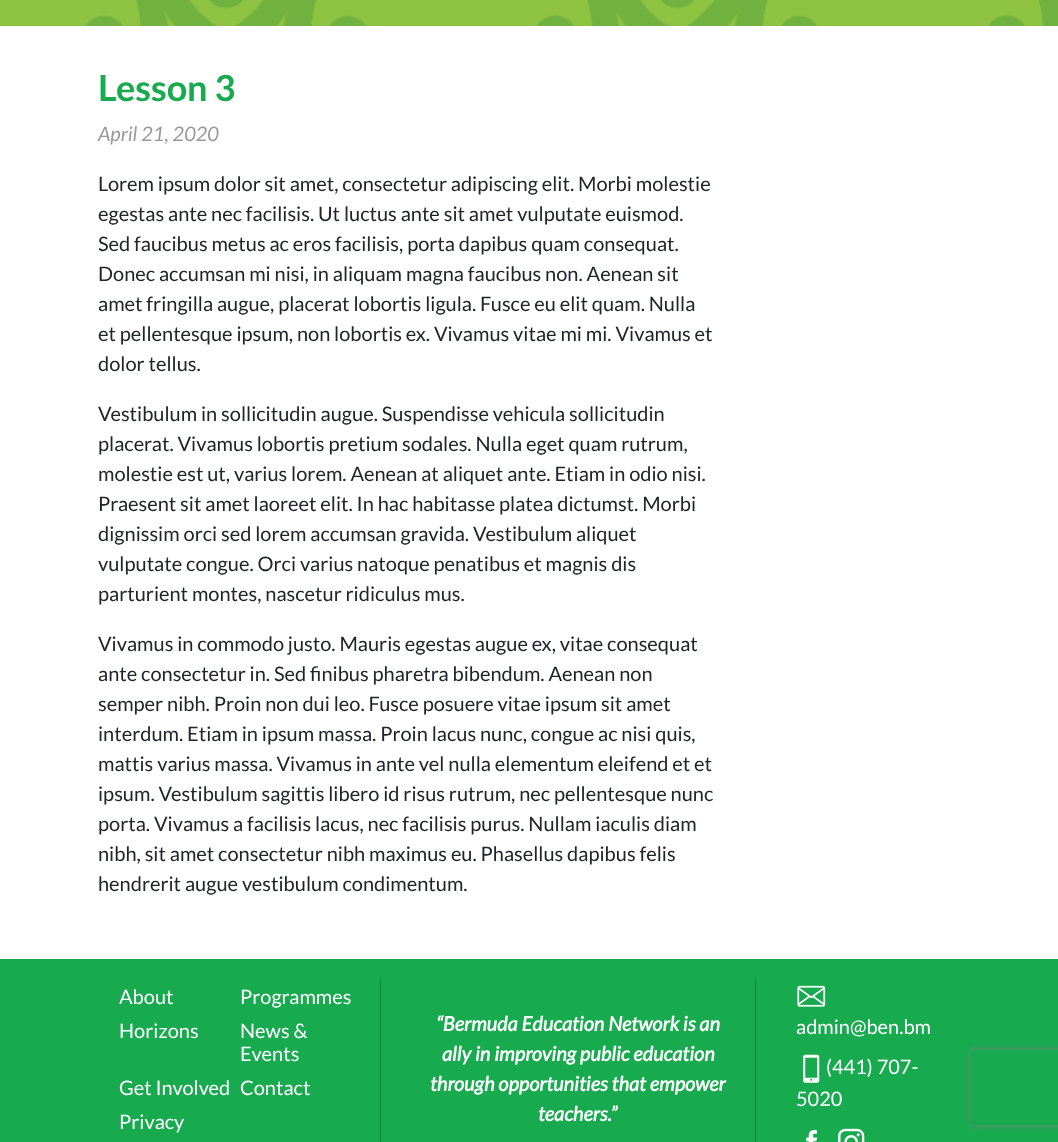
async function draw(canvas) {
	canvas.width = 1058;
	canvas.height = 1142;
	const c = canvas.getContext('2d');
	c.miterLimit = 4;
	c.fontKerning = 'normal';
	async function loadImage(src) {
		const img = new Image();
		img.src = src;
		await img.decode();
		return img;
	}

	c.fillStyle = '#18aa4f';
	c.fillRect(0, 0, 1058, 1142);
	c.fillStyle = '#fff';
	c.fillRect(0, 26, 1058, 933);
	c.fillStyle = '#8dc341';
	c.fillRect(0, 0, 1058, 26);
	c.drawImage(await loadImage('img1.png'), 85, 0, 973, 26);
	c.font = 'bold 36px Lato';
	c.fillStyle = '#18aa4f';
	c.fillText('Lesson 3', 98, 101);
	c.font = 'italic 20px Lato';
	c.fillStyle = '#999';
	c.fillText('April 21, 2020', 98, 141);
	c.font = '20px Lato';
	c.fillStyle = '#212529';
	for (const [text, x, y] of [
		['Lorem ipsum dolor sit amet, consectetur adipiscing elit. Morbi molestie', 98, 191],
		['egestas ante nec facilisis. Ut luctus ante sit amet vulputate euismod.', 98, 221],
		['Sed faucibus metus ac eros facilisis, porta dapibus quam consequat.', 98, 251],
		['Donec accumsan mi nisi, in aliquam magna faucibus non. Aenean sit', 98, 281],
		['amet fringilla augue, placerat lobortis ligula. Fusce eu elit quam. Nulla', 98, 311],
		['et pellentesque ipsum, non lobortis ex. Vivamus vitae mi mi. Vivamus et', 98, 341],
		['dolor tellus.', 98, 371],
		['Vestibulum in sollicitudin augue. Suspendisse vehicula sollicitudin', 98, 421],
		['placerat. Vivamus lobortis pretium sodales. Nulla eget quam rutrum,', 98, 451],
		['molestie est ut, varius lorem. Aenean at aliquet ante. Etiam in odio nisi.', 98, 481],
		['Praesent sit amet laoreet elit. In hac habitasse platea dictumst. Morbi', 98, 511],
		['dignissim orci sed lorem accumsan gravida. Vestibulum aliquet', 98, 541],
		['vulputate congue. Orci varius natoque penatibus et magnis dis', 98, 571],
		['parturient montes, nascetur ridiculus mus.', 98, 601],
		['Vivamus in commodo justo. Mauris egestas augue ex, vitae consequat', 98, 651],
		['ante consectetur in. Sed finibus pharetra bibendum. Aenean non', 98, 681],
		['semper nibh. Proin non dui leo. Fusce posuere vitae ipsum sit amet', 98, 711],
		['interdum. Etiam in ipsum massa. Proin lacus nunc, congue ac nisi quis,', 98, 741],
		['mattis varius massa. Vivamus in ante vel nulla elementum eleifend et et', 98, 771],
		['ipsum. Vestibulum sagittis libero id risus rutrum, nec pellentesque nunc', 98, 801],
		['porta. Vivamus a facilisis lacus, nec facilisis purus. Nullam iaculis diam', 98, 831],
		['nibh, sit amet consectetur nibh maximus eu. Phasellus dapibus felis', 98, 861],
		['hendrerit augue vestibulum condimentum.', 98, 891],
	]) {
		c.fillText(text, x, y);
	}
	c.fillStyle = '#fff';
	for (const [text, x, y] of [
		['About', 119, 1004],
		['Programmes', 240, 1004],
		['Horizons', 119, 1038],
		['News &', 240, 1038],
		['Events', 240, 1061],
		['Get Involved', 119, 1095],
		['Contact', 240, 1095],
		['Privacy', 119, 1129],
	]) {
		c.fillText(text, x, y);
	}
	c.fillStyle = '#018a34';
	c.fillRect(380, 979, 1, 163);
	c.font = 'italic bold 20px Lato';
	c.fillStyle = '#fff';
	for (const [text, x, y] of [
		['“Bermuda Education Network is an', 436, 1031],
		['ally in improving public education', 442, 1061],
		['through opportunities that empower', 430, 1091],
		['teachers.”', 538, 1121],
	]) {
		c.fillText(text, x, y);
	}
	c.fillStyle = '#018a34';
	c.fillRect(755, 979, 1, 163);
	c.drawImage(await loadImage('img2.png'), 797, 985, 29, 22);
	c.font = '20px Lato';
	c.fillStyle = '#fff';
	c.fillText('admin@ben.bm', 796, 1034);
	c.drawImage(await loadImage('img3.png'), 803, 1054, 17, 29);
	c.fillText('(441) 707-', 826, 1074);
	c.fillText('5020', 796, 1106);
	c.drawImage(await loadImage('img4.png'), 806, 1130, 12, 12);
	c.drawImage(await loadImage('img5.png'), 838, 1128, 27, 14);
	c.save();
	c.beginPath();
	c.moveTo(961, 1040);
	c.lineTo(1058, 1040);
	c.lineTo(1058, 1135);
	c.lineTo(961, 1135);
	c.closePath();
	c.moveTo(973.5, 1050);
	c.lineTo(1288.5, 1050);
	c.bezierCurveTo(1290, 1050, 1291, 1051, 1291, 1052.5);
	c.lineTo(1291, 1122.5);
	c.bezierCurveTo(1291, 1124, 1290, 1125, 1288.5, 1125);
	c.lineTo(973.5, 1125);
	c.bezierCurveTo(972, 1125, 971, 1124, 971, 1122.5);
	c.lineTo(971, 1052.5);
	c.bezierCurveTo(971, 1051, 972, 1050, 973.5, 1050);
	c.closePath();
	c.clip('evenodd');
	c.fillStyle = '#808080';
	c.filter = 'blur(3px)';
	c.beginPath();
	c.roundRect(971, 1050, 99, 75, 2.5);
	c.fill();
	c.filter = 'none';
	c.restore();
}

draw(document.querySelector('canvas'));
